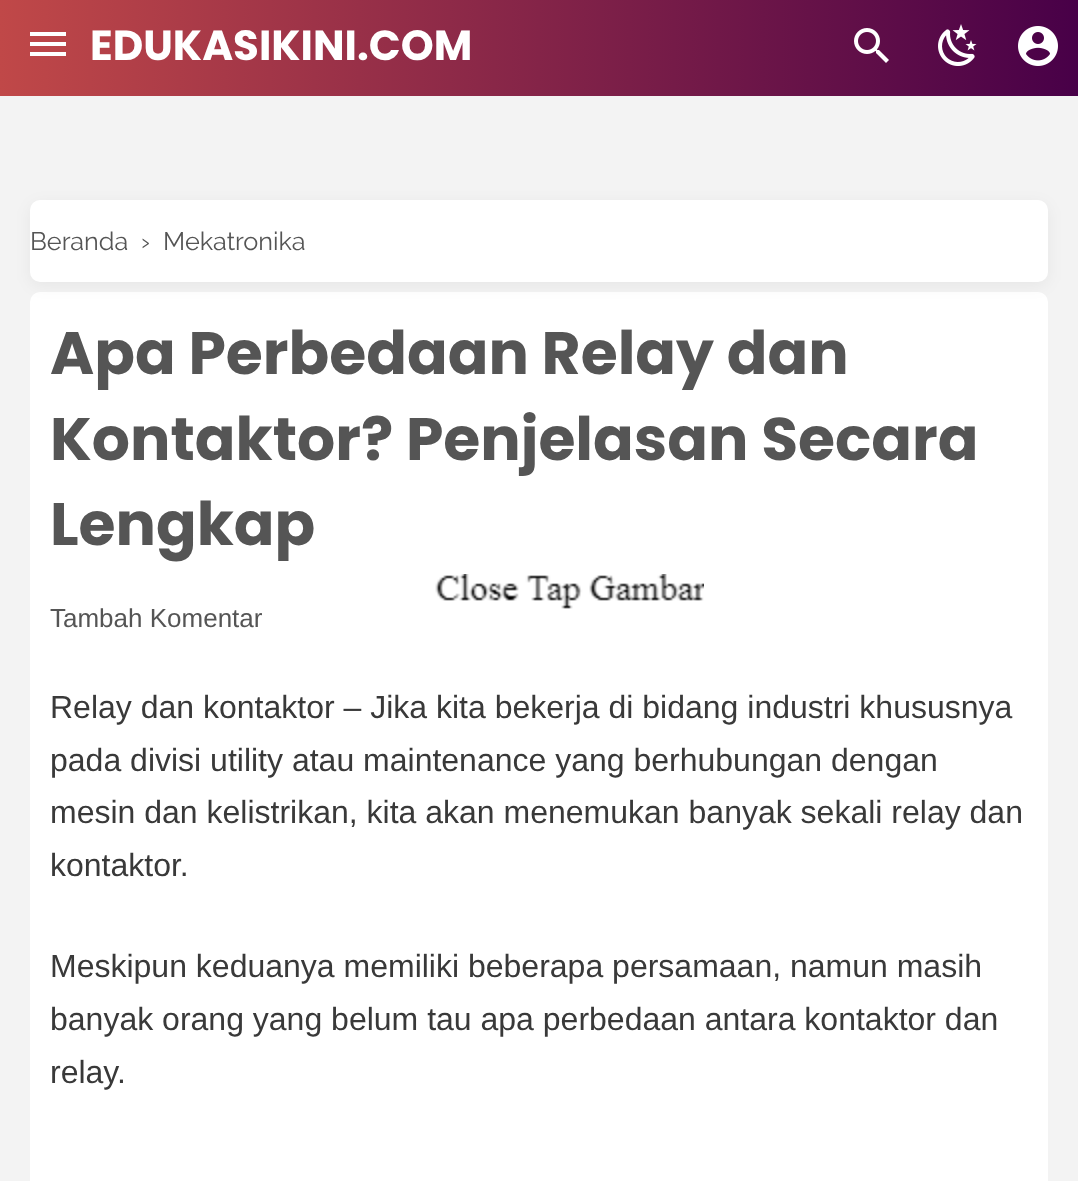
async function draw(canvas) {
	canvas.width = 1078;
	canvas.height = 1181;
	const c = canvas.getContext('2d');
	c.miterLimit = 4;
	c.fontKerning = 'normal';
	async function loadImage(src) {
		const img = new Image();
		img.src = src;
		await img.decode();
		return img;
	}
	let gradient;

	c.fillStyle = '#f3f3f3';
	c.fillRect(0, 0, 1078, 1181);
	gradient = c.createLinearGradient(0, 48, 1078, 48);
	gradient.addColorStop(0, '#c04848');
	gradient.addColorStop(1, '#480048');
	c.fillStyle = gradient;
	c.fillRect(0, 0, 1078, 96);
	for (const [x, y, w, h, color] of [
		[30, 32, 36, 4, '#fff'],
		[30, 42, 36, 4, '#fff'],
		[30, 52, 36, 4, '#fff'],
	]) {
		c.fillStyle = color;
		c.fillRect(x, y, w, h);
	}
	c.font = 'bold 42px Poppins';
	c.fillText('EDUKASIKINI.COM', 90, 60);
	c.drawImage(await loadImage('img1.png'), 854, 28, 35, 35);
	c.drawImage(await loadImage('img2.png'), 938, 24, 39, 42);
	c.drawImage(await loadImage('img3.png'), 1018, 26, 40, 40);
	c.beginPath();
	c.roundRect(30, 292, 1018, 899, 10);
	c.fill();
	c.fillStyle = '#0000000d';
	c.filter = 'blur(8px)';
	c.beginPath();
	c.roundRect(30, 204, 1018, 82, 10);
	c.fill();
	c.filter = 'none';
	c.fillStyle = '#fff';
	c.beginPath();
	c.roundRect(30, 200, 1018, 82, 10);
	c.fill();
	c.font = '25.25px Raleway';
	c.fillStyle = '#555';
	for (const [text, x, y] of [
		['Beranda', 30, 250],
		['›', 141, 250],
		['Mekatronika', 163, 250],
	]) {
		c.fillText(text, x, y);
	}
	c.font = 'bold 60px Poppins';
	for (const [text, x, y] of [
		['Apa Perbedaan Relay dan', 50, 374],
		['Kontaktor? Penjelasan Secara', 50, 460],
		['Lengkap', 50, 545],
	]) {
		c.fillText(text, x, y);
	}
	c.font = '26px Liberation Sans';
	c.fillText('Tambah Komentar', 50, 627);
	c.font = '32px Liberation Sans';
	c.fillStyle = '#393939';
	for (const [text, x, y] of [
		['Relay dan kontaktor – Jika kita bekerja di bidang industri khususnya', 50, 718],
		['pada divisi utility atau maintenance yang berhubungan dengan', 50, 771],
		['mesin dan kelistrikan, kita akan menemukan banyak sekali relay dan', 50, 823],
		['kontaktor.', 50, 876],
		['Meskipun keduanya memiliki beberapa persamaan, namun masih', 50, 977],
		['banyak orang yang belum tau apa perbedaan antara kontaktor dan', 50, 1030],
		['relay.', 50, 1083],
	]) {
		c.fillText(text, x, y);
	}
	c.drawImage(await loadImage('img4.png'), 435, 574, 269, 35);
}

draw(document.querySelector('canvas'));
